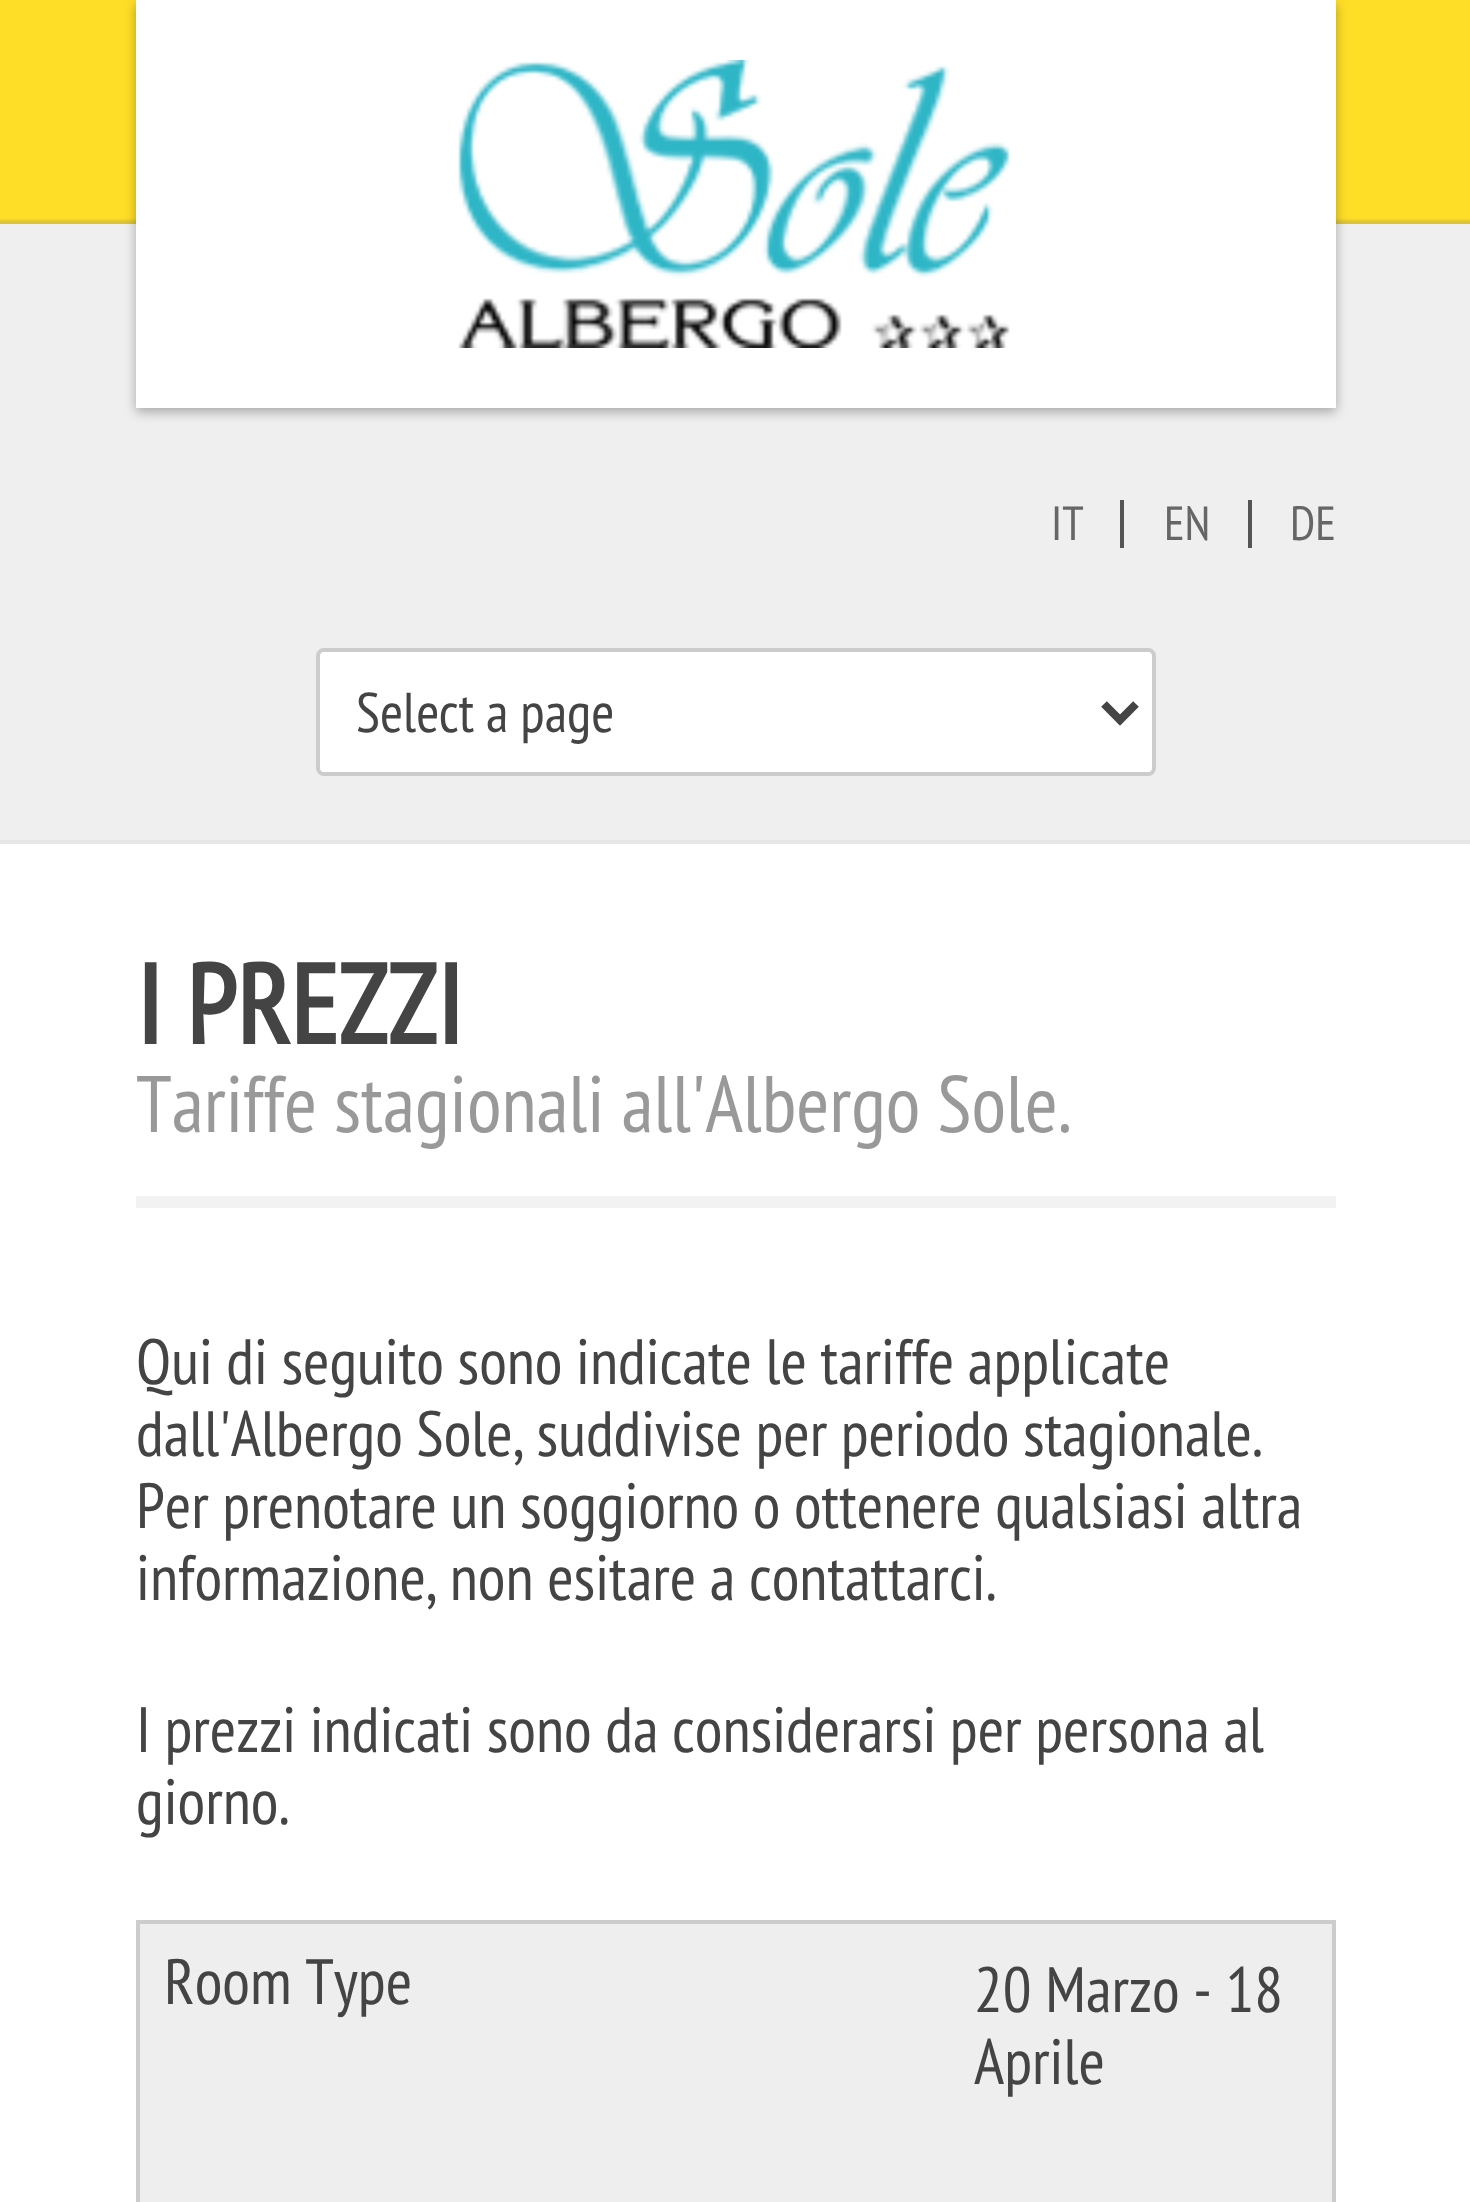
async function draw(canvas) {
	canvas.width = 1470;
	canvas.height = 2202;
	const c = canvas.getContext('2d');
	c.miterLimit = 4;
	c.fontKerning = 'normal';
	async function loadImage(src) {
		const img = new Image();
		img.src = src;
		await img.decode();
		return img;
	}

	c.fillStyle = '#fff';
	c.fillRect(0, 0, 1470, 2202);
	c.fillStyle = '#efefef';
	c.fillRect(0, 224, 1470, 616);
	c.drawImage(await loadImage('img1.png'), 0, 0, 1470, 224);
	c.fillStyle = '#e6e6e6';
	c.fillRect(0, 840, 1470, 4);
	c.fillStyle = '#0000004d';
	c.filter = 'blur(6px)';
	c.beginPath();
	c.rect(136, 4, 1200, 408);
	c.fill();
	c.filter = 'none';
	c.fillStyle = '#fff';
	c.fillRect(136, 0, 1200, 408);
	c.drawImage(await loadImage('img2.png'), 458, 60, 552, 288);
	c.fillStyle = '#555';
	c.fillRect(1120, 500, 4, 48);
	c.font = '48px PT Sans Narrow';
	c.fillStyle = '#666';
	c.fillText('IT', 1051, 540);
	c.fillStyle = '#555';
	c.fillRect(1248, 500, 4, 48);
	c.fillStyle = '#666';
	c.fillText('EN', 1164, 540);
	c.fillText('DE', 1290, 540);
	c.fillStyle = '#fff';
	c.beginPath();
	c.roundRect(318, 650, 836, 124, 6);
	c.fill();
	c.strokeStyle = '#ccc';
	c.lineWidth = 4;
	c.stroke();
	c.beginPath();
	c.moveTo(1104, 704);
	c.lineTo(1120, 720);
	c.lineTo(1136, 704);
	c.strokeStyle = '#444';
	c.lineWidth = 8;
	c.stroke();
	c.font = '56px "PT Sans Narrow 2"';
	c.fillStyle = '#444';
	c.fillText('Select a page', 356, 732);
	c.fillStyle = '#f2f2f2';
	c.fillRect(136, 1196, 1200, 12);
	c.font = 'bold 112px PT Sans Narrow';
	c.fillStyle = '#444';
	c.fillText('I PREZZI', 136, 1044);
	c.font = '80px PT Sans Narrow';
	c.fillStyle = '#999';
	c.fillText('Tariffe stagionali all\'Albergo Sole.', 136, 1132);
	c.font = '64px PT Sans Narrow';
	c.fillStyle = '#444';
	for (const [text, x, y] of [
		['Qui di seguito sono indicate le tariffe applicate', 136, 1384],
		['dall\'Albergo Sole, suddivise per periodo stagionale.', 136, 1456],
		['Per prenotare un soggiorno o ottenere qualsiasi altra', 136, 1528],
		['informazione, non esitare a contattarci.', 136, 1600],
		['I prezzi indicati sono da considerarsi per persona al', 136, 1752],
		['giorno.', 136, 1824],
	]) {
		c.fillText(text, x, y);
	}
	c.fillStyle = '#eee';
	c.beginPath();
	c.rect(138, 1922, 1196, 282);
	c.fill();
	c.strokeStyle = '#ccc';
	c.lineWidth = 4;
	c.stroke();
	c.fillStyle = '#444';
	for (const [text, x, y] of [
		['Room Type', 164, 2004],
		['20 Marzo - 18', 974, 2012],
		['Aprile', 974, 2084],
	]) {
		c.fillText(text, x, y);
	}
}

draw(document.querySelector('canvas'));
